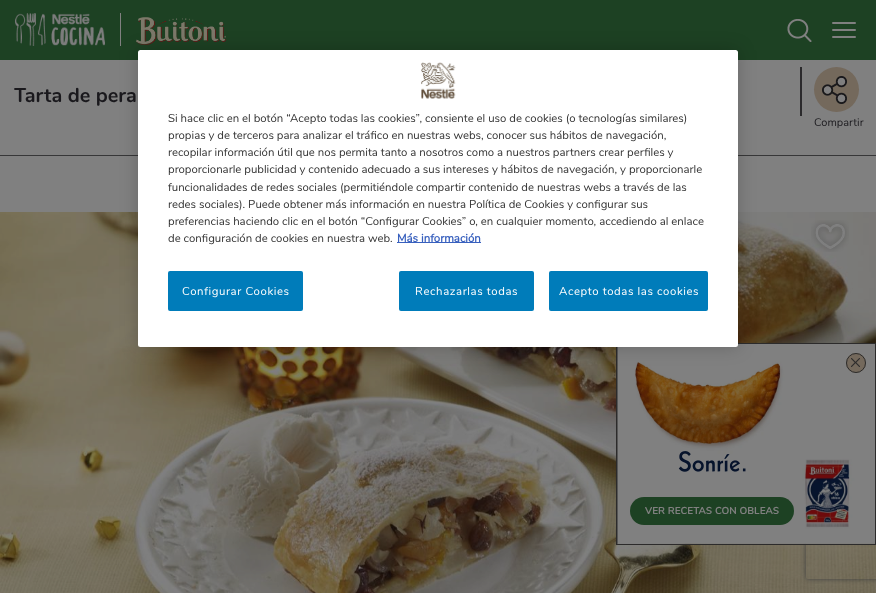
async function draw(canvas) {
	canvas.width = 876;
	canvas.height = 593;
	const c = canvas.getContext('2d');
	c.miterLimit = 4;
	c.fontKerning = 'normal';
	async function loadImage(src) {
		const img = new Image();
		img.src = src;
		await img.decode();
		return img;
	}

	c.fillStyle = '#808080';
	c.fillRect(0, 0, 876, 593);
	c.fillStyle = '#1d4123';
	c.fillRect(0, 0, 876, 60);
	c.drawImage(await loadImage('img1.png'), 15, 13, 90, 33);
	c.fillStyle = '#808080';
	c.fillRect(120, 13, 1, 33);
	c.drawImage(await loadImage('img2.png'), 136, 17, 90, 28);
	c.drawImage(await loadImage('img3.png'), 787, 19, 25, 23);
	c.beginPath();
	c.roundRect(832, 22, 24, 2, 1);
	c.fill();
	c.beginPath();
	c.roundRect(832, 29, 24, 2, 1);
	c.fill();
	c.beginPath();
	c.roundRect(832, 36, 24, 2, 1);
	c.fill();
	c.fillStyle = '#373738';
	c.fillRect(0, 155, 876, 1);
	c.font = 'bold 20px Nunito';
	c.fillStyle = '#1a191d';
	c.fillText('Tarta de pera', 14, 102);
	c.fillStyle = '#74695c';
	c.beginPath();
	c.arc(836.5, 89.5, 22.5, 0, 2 * Math.PI);
	c.fill();
	c.fillStyle = '#2b2a2c';
	c.fillRect(800, 67, 2, 49);
	c.drawImage(await loadImage('img4.png'), 822, 76, 25, 28);
	c.font = '11px Nunito';
	c.fillStyle = '#1a191d';
	c.fillText('Compartir', 814, 126);
	c.drawImage(await loadImage('img5.png'), 0, 212, 876, 381);
	c.drawImage(await loadImage('img6.png'), 811, 220, 38, 32);
	c.save();
	c.beginPath();
	c.moveTo(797, 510);
	c.lineTo(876, 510);
	c.lineTo(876, 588);
	c.lineTo(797, 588);
	c.closePath();
	c.moveTo(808, 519);
	c.lineTo(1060, 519);
	c.bezierCurveTo(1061, 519, 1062, 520, 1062, 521);
	c.lineTo(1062, 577);
	c.bezierCurveTo(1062, 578, 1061, 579, 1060, 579);
	c.lineTo(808, 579);
	c.bezierCurveTo(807, 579, 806, 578, 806, 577);
	c.lineTo(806, 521);
	c.bezierCurveTo(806, 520, 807, 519, 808, 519);
	c.closePath();
	c.clip('evenodd');
	c.fillStyle = '#404040';
	c.filter = 'blur(2.5px)';
	c.beginPath();
	c.roundRect(806, 519, 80, 60, 2);
	c.fill();
	c.filter = 'none';
	c.restore();
	c.strokeStyle = '#2c2b2b';
	c.strokeRect(616.5, 343.5, 259, 201);
	c.drawImage(await loadImage('img8.png'), 617, 344, 258, 200);
	c.fillStyle = '#74695c';
	c.beginPath();
	c.arc(856, 363, 10, 0, 2 * Math.PI);
	c.fill();
	c.drawImage(await loadImage('img7.png'), 851, 358, 9, 9);
	c.beginPath();
	c.arc(856, 363, 9.5, 0, 2 * Math.PI);
	c.stroke();
	c.drawImage(await loadImage('img9.png'), 678, 451, 68, 21);
	c.fillStyle = '#1d4123';
	c.beginPath();
	c.roundRect(630, 497, 164, 28, 14);
	c.fill();
	c.font = 'bold 10px Nunito';
	c.fillStyle = '#808080';
	c.fillText('VER RECETAS CON OBLEAS', 645, 514);
	c.fillStyle = '#00000033';
	c.filter = 'blur(9px)';
	c.beginPath();
	c.roundRect(138, 50, 600, 297, 2.5);
	c.fill();
	c.filter = 'none';
	c.fillStyle = '#fff';
	c.beginPath();
	c.roundRect(138, 50, 600, 297, 2.5);
	c.fill();
	c.drawImage(await loadImage('img10.png'), 421, 62, 35, 37);
	c.font = '11.4px Nunito';
	c.fillStyle = '#333';
	for (const [text, x, y] of [
		['Si hace clic en el botón “Acepto todas las cookies”, consiente el uso de cookies (o tecnologías similares)', 168, 122],
		['propias y de terceros para analizar el tráfico en nuestras webs, conocer sus hábitos de navegación,', 168, 139],
		['recopilar información útil que nos permita tanto a nosotros como a nuestros partners crear perfiles y', 168, 156],
		['proporcionarle publicidad y contenido adecuado a sus intereses y hábitos de navegación, y proporcionarle', 168, 173],
		['funcionalidades de redes sociales (permitiéndole compartir contenido de nuestras webs a través de las', 168, 191],
		['redes sociales). Puede obtener más información en nuestra Política de Cookies y configurar sus', 168, 208],
		['preferencias haciendo clic en el botón “Configurar Cookies” o, en cualquier momento, accediendo al enlace', 168, 225],
		['de configuración de cookies en nuestra web.', 168, 242],
	]) {
		c.fillText(text, x, y);
	}
	c.fillStyle = '#3860be';
	c.fillRect(397, 242, 84, 1);
	c.font = 'bold 11.4px "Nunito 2"';
	c.fillText('Más información', 397, 242);
	c.fillStyle = '#007cba';
	c.beginPath();
	c.roundRect(168, 271, 135, 40, 2);
	c.fill();
	c.letterSpacing = '0.6px';
	c.font = '11.4px Nunito';
	c.fillStyle = '#fff';
	c.fillText('Configurar Cookies', 182, 295);
	c.fillStyle = '#007cba';
	c.beginPath();
	c.roundRect(399, 271, 135, 40, 2);
	c.fill();
	c.fillStyle = '#fff';
	c.fillText('Rechazarlas todas', 415, 295);
	c.fillStyle = '#007cba';
	c.beginPath();
	c.roundRect(549, 271, 159, 40, 2);
	c.fill();
	c.fillStyle = '#fff';
	c.fillText('Acepto todas las cookies', 559, 295);
}

draw(document.querySelector('canvas'));
